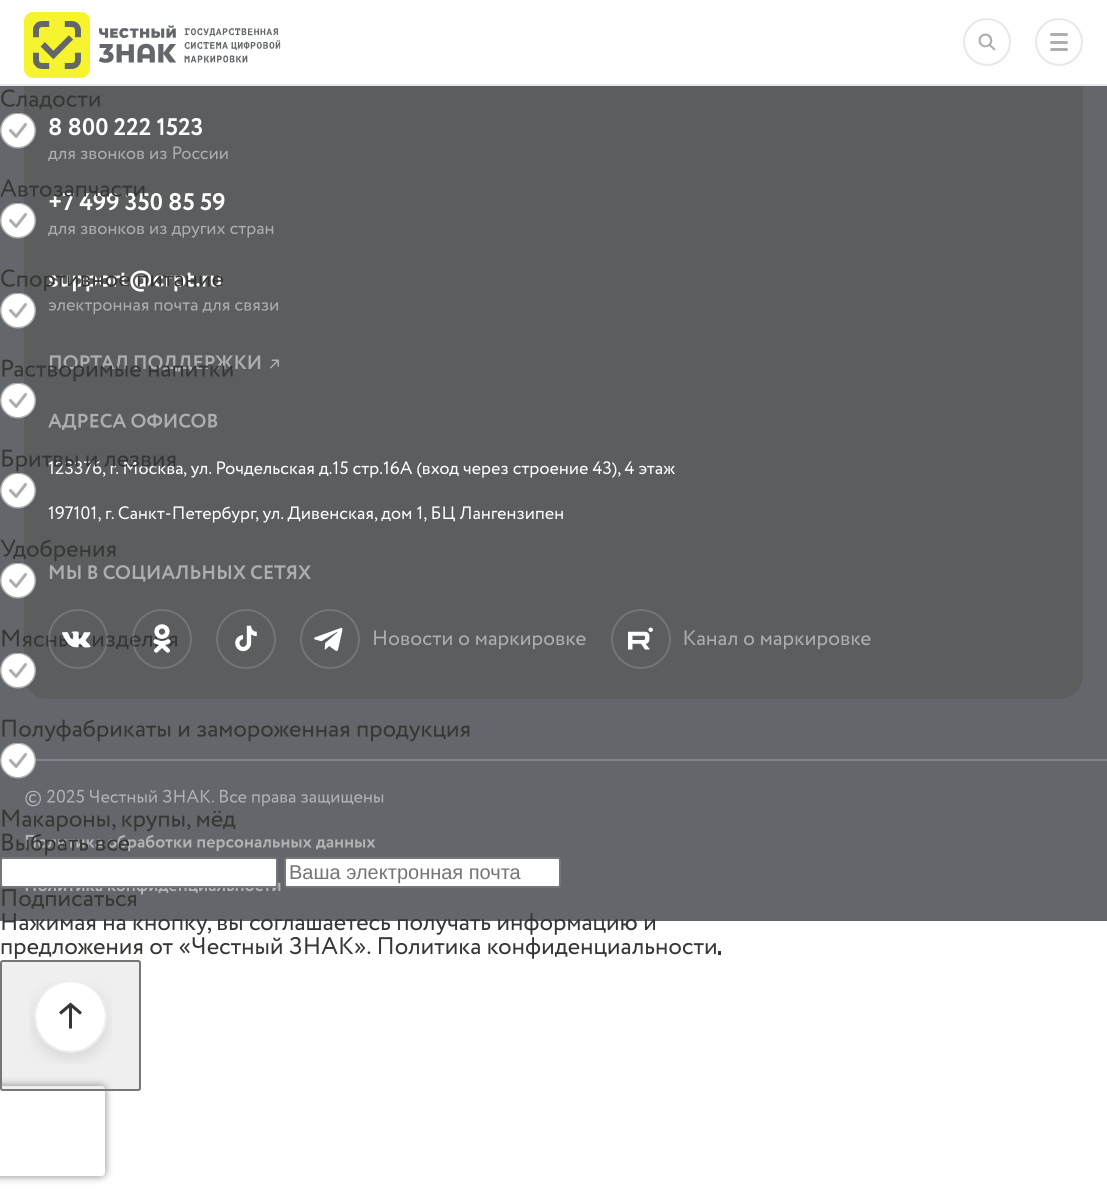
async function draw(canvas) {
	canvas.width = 1107;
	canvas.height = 1196;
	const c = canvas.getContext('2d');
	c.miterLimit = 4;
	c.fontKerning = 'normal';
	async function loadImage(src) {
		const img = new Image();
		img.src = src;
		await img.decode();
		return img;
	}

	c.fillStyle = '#fff';
	c.fillRect(0, 0, 1107, 1196);
	c.fillStyle = '#63666a';
	c.fillRect(0, 86, 1107, 835);
	c.fillStyle = '#5b5d5e';
	c.beginPath();
	c.roundRect(24, 42, 1059, 657, 24);
	c.fill();
	c.fillStyle = '#fff';
	c.fillRect(24, 42, 1059, 42);
	c.fillStyle = '#e8e8e8';
	c.fillRect(0, 84, 1107, 2);
	c.drawImage(await loadImage('img1.png'), 24, 12, 257, 66);
	c.beginPath();
	c.arc(987, 42, 23, 0, 2 * Math.PI);
	c.strokeStyle = '#e8e8e8';
	c.lineWidth = 2;
	c.stroke();
	c.drawImage(await loadImage('img2.png'), 978, 33, 18, 18);
	c.beginPath();
	c.arc(1059, 42, 23, 0, 2 * Math.PI);
	c.stroke();
	c.fillStyle = '#adadad';
	c.beginPath();
	c.roundRect(1050, 33, 18, 3, 1.5);
	c.fill();
	c.beginPath();
	c.roundRect(1050, 41, 18, 3, 1.5);
	c.fill();
	c.beginPath();
	c.roundRect(1050, 48, 18, 3, 1.5);
	c.fill();
	c.drawImage(await loadImage('img3.png'), 49, 117, 153, 19);
	c.drawImage(await loadImage('img4.png'), 48, 146, 180, 15);
	c.drawImage(await loadImage('img5.png'), 49, 192, 176, 19);
	c.drawImage(await loadImage('img6.png'), 48, 225, 226, 13);
	c.drawImage(await loadImage('img7.png'), 49, 270, 172, 22);
	c.drawImage(await loadImage('img8.png'), 48, 302, 230, 13);
	c.drawImage(await loadImage('img9.png'), 49, 355, 212, 17);
	c.drawImage(await loadImage('img10.png'), 270, 359, 9, 10);
	c.drawImage(await loadImage('img11.png'), 48, 413, 170, 17);
	c.drawImage(await loadImage('img12.png'), 48, 461, 54, 14);
	c.drawImage(await loadImage('img13.png'), 103, 472, 3, 5);
	c.drawImage(await loadImage('img14.png'), 110, 461, 73, 14);
	c.drawImage(await loadImage('img13.png'), 184, 472, 3, 5);
	c.drawImage(await loadImage('img15.png'), 190, 461, 485, 17);
	c.drawImage(await loadImage('img16.png'), 48, 506, 48, 14);
	c.drawImage(await loadImage('img17.png'), 98, 517, 3, 5);
	c.drawImage(await loadImage('img18.png'), 106, 506, 151, 17);
	c.drawImage(await loadImage('img13.png'), 256, 517, 3, 5);
	c.drawImage(await loadImage('img19.png'), 262, 506, 301, 17);
	c.drawImage(await loadImage('img20.png'), 49, 565, 262, 17);
	c.drawImage(await loadImage('img38.png'), 2, 629, 175, 21);
	c.beginPath();
	c.arc(78, 639, 29, 0, 2 * Math.PI);
	c.strokeStyle = '#ffffff26';
	c.stroke();
	c.drawImage(await loadImage('img21.png'), 62, 631, 29, 17);
	c.beginPath();
	c.arc(162, 639, 29, 0, 2 * Math.PI);
	c.stroke();
	c.drawImage(await loadImage('img22.png'), 153, 624, 18, 29);
	c.beginPath();
	c.arc(246, 639, 29, 0, 2 * Math.PI);
	c.strokeStyle = '#747576';
	c.stroke();
	c.drawImage(await loadImage('img23.png'), 235, 625, 22, 27);
	c.beginPath();
	c.arc(330, 639, 29, 0, 2 * Math.PI);
	c.stroke();
	c.drawImage(await loadImage('img24.png'), 314, 627, 29, 24);
	c.drawImage(await loadImage('img25.png'), 374, 630, 212, 20);
	c.beginPath();
	c.arc(641, 639, 29, 0, 2 * Math.PI);
	c.stroke();
	c.drawImage(await loadImage('img26.png'), 628, 627, 25, 23);
	c.drawImage(await loadImage('img27.png'), 684, 630, 187, 20);
	c.fillStyle = '#828588';
	c.fillRect(0, 759, 1107, 2);
	c.drawImage(await loadImage('img28.png'), 25, 789, 359, 18);
	c.drawImage(await loadImage('img29.png'), 25, 834, 351, 18);
	c.drawImage(await loadImage('img30.png'), 25, 882, 256, 13);
	c.drawImage(await loadImage('img31.png'), 1, 89, 99, 21);
	c.drawImage(await loadImage('img32.png'), 0, 113, 36, 36);
	c.drawImage(await loadImage('img33.png'), 0, 179, 145, 18);
	c.drawImage(await loadImage('img32.png'), 0, 203, 36, 36);
	c.drawImage(await loadImage('img34.png'), 1, 269, 222, 23);
	c.drawImage(await loadImage('img32.png'), 0, 293, 36, 36);
	c.drawImage(await loadImage('img35.png'), 2, 359, 231, 23);
	c.drawImage(await loadImage('img32.png'), 0, 383, 36, 36);
	c.drawImage(await loadImage('img36.png'), 2, 449, 174, 23);
	c.drawImage(await loadImage('img32.png'), 0, 473, 36, 36);
	c.drawImage(await loadImage('img37.png'), 0, 539, 116, 23);
	c.drawImage(await loadImage('img32.png'), 0, 563, 36, 36);
	c.drawImage(await loadImage('img39.png'), 0, 653, 36, 36);
	c.drawImage(await loadImage('img40.png'), 2, 719, 468, 23);
	c.drawImage(await loadImage('img41.png'), 0, 743, 36, 36);
	c.drawImage(await loadImage('img42.png'), 2, 809, 234, 23);
	c.drawImage(await loadImage('img43.png'), 2, 833, 128, 23);
	c.fillStyle = '#fff';
	c.beginPath();
	c.roundRect(1, 858, 276, 29, 2);
	c.fill();
	c.strokeStyle = '#767676';
	c.stroke();
	c.beginPath();
	c.roundRect(285, 858, 275, 29, 2);
	c.fill();
	c.stroke();
	c.font = '20px Liberation Sans';
	c.fillStyle = '#757575';
	c.fillText('Ваша электронная почта', 289, 879);
	c.drawImage(await loadImage('img44.png'), 2, 889, 134, 20);
	c.drawImage(await loadImage('img45.png'), 2, 913, 654, 22);
	c.drawImage(await loadImage('img46.png'), 1, 937, 370, 22);
	c.drawImage(await loadImage('img47.png'), 379, 937, 337, 22);
	c.fillStyle = '#363634';
	c.fillRect(718, 951, 3, 4);
	c.fillStyle = '#efefef';
	c.beginPath();
	c.roundRect(1, 961, 139, 129, 2);
	c.fill();
	c.stroke();
	c.drawImage(await loadImage('img48.png'), 29, 981, 83, 83);
	c.save();
	c.beginPath();
	c.moveTo(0, 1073);
	c.lineTo(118, 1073);
	c.lineTo(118, 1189);
	c.lineTo(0, 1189);
	c.closePath();
	c.moveTo(-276, 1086);
	c.lineTo(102, 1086);
	c.bezierCurveTo(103.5, 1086, 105, 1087.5, 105, 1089);
	c.lineTo(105, 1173);
	c.bezierCurveTo(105, 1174.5, 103.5, 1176, 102, 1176);
	c.lineTo(-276, 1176);
	c.bezierCurveTo(-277.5, 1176, -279, 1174.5, -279, 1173);
	c.lineTo(-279, 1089);
	c.bezierCurveTo(-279, 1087.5, -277.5, 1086, -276, 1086);
	c.closePath();
	c.clip('evenodd');
	c.fillStyle = '#808080';
	c.filter = 'blur(4px)';
	c.beginPath();
	c.roundRect(-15, 1086, 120, 90, 3);
	c.fill();
	c.filter = 'none';
	c.restore();
}

draw(document.querySelector('canvas'));
